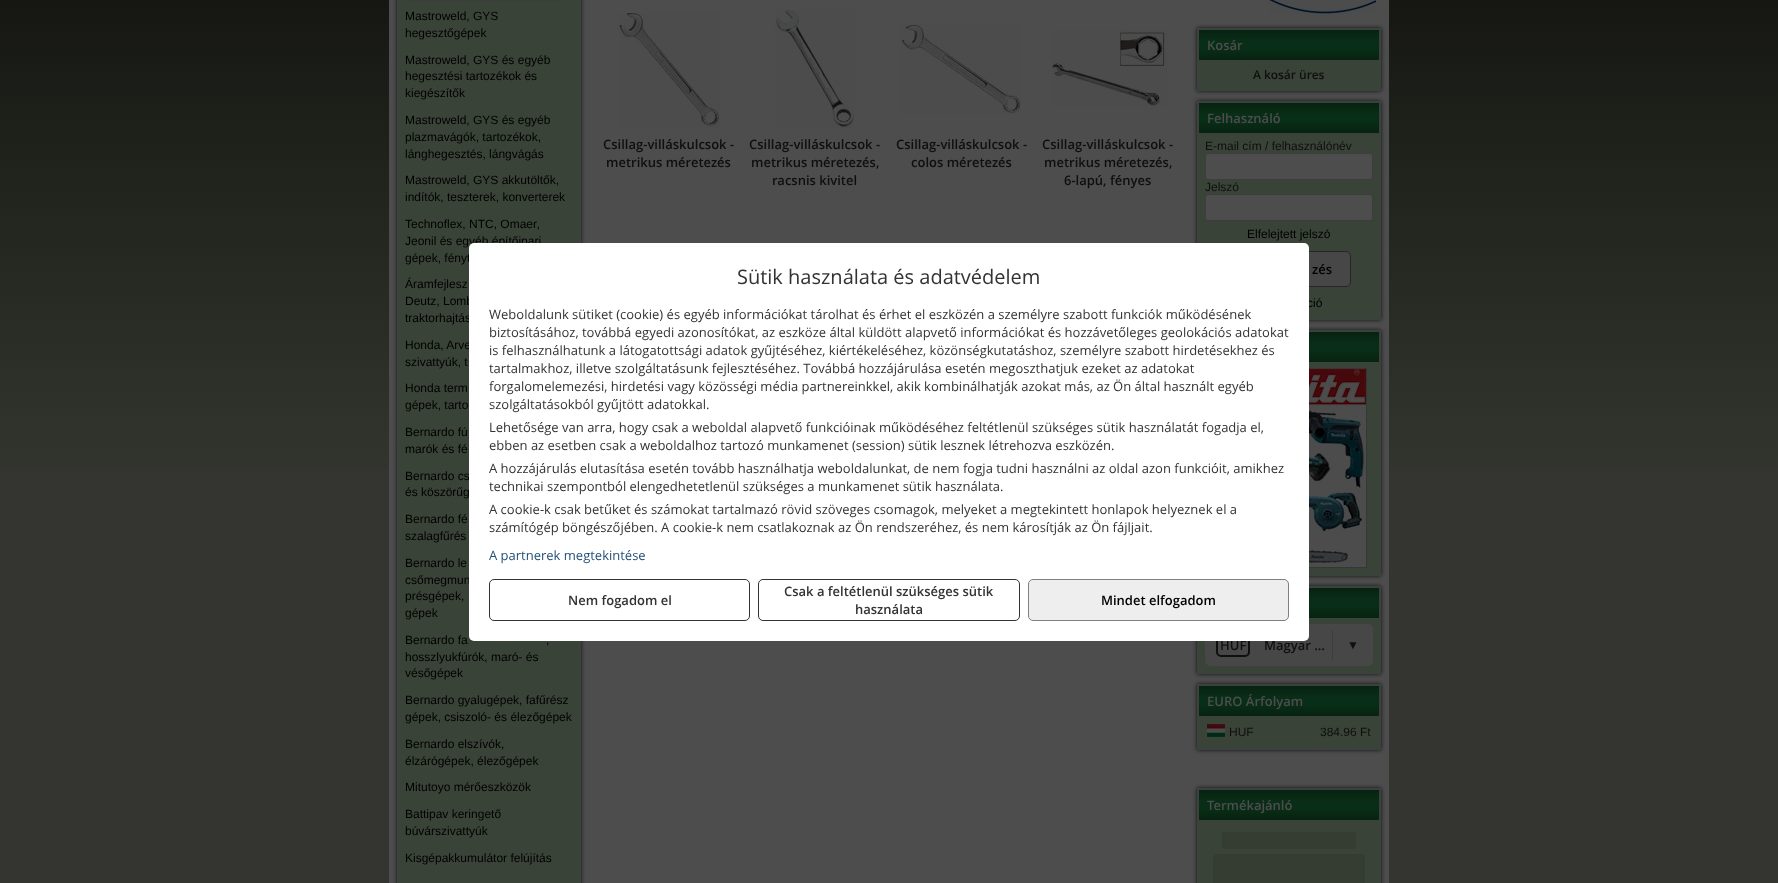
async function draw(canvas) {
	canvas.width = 1778;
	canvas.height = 883;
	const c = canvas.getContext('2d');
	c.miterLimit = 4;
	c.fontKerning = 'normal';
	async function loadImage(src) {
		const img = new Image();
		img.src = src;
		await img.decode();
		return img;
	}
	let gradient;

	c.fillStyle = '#343531';
	c.fillRect(0, 0, 1778, 883);
	gradient = c.createLinearGradient(889, 0, 889, 500);
	gradient.addColorStop(0, '#161713');
	gradient.addColorStop(0.4, '#22251e');
	gradient.addColorStop(0.9, '#31332d');
	gradient.addColorStop(1, '#343531');
	c.fillStyle = gradient;
	c.fillRect(0, 0, 1778, 469);
	c.fillStyle = '#4d4d4d';
	c.fillRect(389, 0, 1000, 883);
	c.fillStyle = '#000000cc';
	c.filter = 'blur(2px)';
	c.beginPath();
	c.rect(397, -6, 184, 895);
	c.fill();
	c.filter = 'none';
	c.fillStyle = '#3a4338';
	c.beginPath();
	c.rect(397.5, -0.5, 183, 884);
	c.fill();
	c.strokeStyle = '#3d4043';
	c.stroke();
	c.beginPath();
	c.roundRect(405.5, -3.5, 159, 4, 2.5);
	c.strokeStyle = '#3d3d3d';
	c.stroke();
	c.font = '12px Liberation Sans';
	c.fillStyle = '#000';
	for (const [text, x, y] of [
		['Mastroweld, GYS', 405, 20],
		['hegesztőgépek', 405, 37],
		['Mastroweld, GYS és egyéb', 405, 64],
		['hegesztési tartozékok és', 405, 80],
		['kiegészítők', 405, 97],
		['Mastroweld, GYS és egyéb', 405, 124],
		['plazmavágók, tartozékok,', 405, 141],
		['lánghegesztés, lángvágás', 405, 158],
		['Mastroweld, GYS akkutöltők,', 405, 184],
		['indítók, teszterek, konverterek', 405, 201],
		['Technoflex, NTC, Omaer,', 405, 228],
		['Jeonil és egyéb építőipari', 405, 245],
		['gépek, fényt', 405, 262],
		['Áramfejlesz', 405, 288],
		['Deutz, Lomb', 405, 305],
		['traktorhajtás', 405, 322],
		['Honda, Arve', 405, 349],
		['szivattyúk, t', 405, 366],
		['Honda term', 405, 392],
		['gépek, tarto', 405, 409],
		['Bernardo fú', 405, 436],
		['marók és fé', 405, 453],
		['Bernardo cs', 405, 480],
		['és köszörűg', 405, 496],
		['Bernardo fé', 405, 523],
		['szalagfűrés', 405, 540],
		['Bernardo le', 405, 567],
		['csőmegmun', 405, 584],
		['présgépek,', 405, 600],
		['gépek', 405, 617],
		['Bernardo fa', 405, 644],
		[',', 546, 644],
		['hosszlyukfúrók, maró- és', 405, 661],
		['vésőgépek', 405, 677],
		['Bernardo gyalugépek, fafűrész', 405, 704],
		['gépek, csiszoló- és élezőgépek', 405, 721],
		['Bernardo elszívók,', 405, 748],
		['élzárógépek, élezőgépek', 405, 765],
		['Mitutoyo mérőeszközök', 405, 791],
		['Battipav keringető', 405, 818],
		['búvárszivattyúk', 405, 835],
		['Kisgépakkumulátor felújítás', 405, 862],
	]) {
		c.fillText(text, x, y);
	}
	c.drawImage(await loadImage('img1.png'), 619, 13, 101, 116);
	c.font = '600 13px Open Sans';
	c.fillStyle = '#0f0f0f';
	c.fillText('Csillag-villáskulcsok -', 603, 149);
	c.fillText('metrikus méretezés', 606, 167);
	c.drawImage(await loadImage('img2.png'), 775, 9, 80, 120);
	for (const [text, x, y] of [
		['Csillag-villáskulcsok -', 749, 149],
		['metrikus méretezés,', 751, 167],
		['racsnis kivitel', 772, 185],
	]) {
		c.fillText(text, x, y);
	}
	c.drawImage(await loadImage('img3.png'), 901, 24, 120, 90);
	c.fillText('Csillag-villáskulcsok -', 896, 149);
	c.fillText('colos méretezés', 911, 167);
	c.drawImage(await loadImage('img4.png'), 1052, 30, 116, 76);
	for (const [text, x, y] of [
		['Csillag-villáskulcsok -', 1042, 149],
		['metrikus méretezés,', 1044, 167],
		['6-lapú, fényes', 1064, 185],
	]) {
		c.fillText(text, x, y);
	}
	c.drawImage(await loadImage('img5.png'), 1269, 0, 107, 14);
	c.fillStyle = '#000000cc';
	c.filter = 'blur(2px)';
	c.beginPath();
	c.rect(1197, 28, 184, 63);
	c.fill();
	c.filter = 'none';
	c.fillStyle = '#3a4338';
	c.beginPath();
	c.rect(1197.5, 28.5, 183, 62);
	c.fill();
	c.strokeStyle = '#3d4043';
	c.stroke();
	gradient = c.createLinearGradient(1289, 30, 1289, 60);
	gradient.addColorStop(0, '#072211');
	gradient.addColorStop(0.4, '#092e17');
	gradient.addColorStop(0.6, '#092e17');
	gradient.addColorStop(1, '#072211');
	c.fillStyle = gradient;
	c.fillRect(1199, 30, 180, 30);
	c.fillStyle = '#4d4d4d';
	c.fillText('Kosár', 1207, 50);
	c.font = '600 12px Open Sans';
	c.fillStyle = '#0f0f0f';
	c.fillText('A kosár üres', 1253, 79);
	c.fillStyle = '#000000cc';
	c.filter = 'blur(2px)';
	c.beginPath();
	c.rect(1197, 101, 184, 219);
	c.fill();
	c.filter = 'none';
	c.fillStyle = '#3a4338';
	c.beginPath();
	c.rect(1197.5, 101.5, 183, 218);
	c.fill();
	c.stroke();
	gradient = c.createLinearGradient(1289, 103, 1289, 133);
	gradient.addColorStop(0, '#072211');
	gradient.addColorStop(0.4, '#092e17');
	gradient.addColorStop(0.6, '#092e17');
	gradient.addColorStop(1, '#072211');
	c.fillStyle = gradient;
	c.fillRect(1199, 103, 180, 30);
	c.font = '600 13px Open Sans';
	c.fillStyle = '#4d4d4d';
	c.fillText('Felhasználó', 1207, 123);
	c.font = '12px Liberation Sans';
	c.fillStyle = '#0f0f0f';
	c.fillText('E-mail cím / felhasználónév', 1205, 150);
	c.fillStyle = '#4d4d4d';
	c.beginPath();
	c.roundRect(1205.5, 153.5, 167, 26, 2.5);
	c.fill();
	c.strokeStyle = '#3d3d3d';
	c.stroke();
	c.fillStyle = '#0f0f0f';
	c.fillText('Jelszó', 1205, 191);
	c.fillStyle = '#4d4d4d';
	c.beginPath();
	c.roundRect(1205.5, 194.5, 167, 26, 2.5);
	c.fill();
	c.stroke();
	c.fillStyle = '#000';
	c.fillText('Elfelejtett jelszó', 1247, 238);
	c.fillStyle = '#474747';
	c.beginPath();
	c.roundRect(1227.5, 251.5, 123, 35, 4.5);
	c.fill();
	c.strokeStyle = '#262626';
	c.stroke();
	c.font = '600 13px Open Sans';
	c.fillStyle = '#000';
	c.fillText('zés', 1312, 274);
	c.font = '12px Liberation Sans';
	c.fillText('ció', 1307, 307);
	c.fillStyle = '#000000cc';
	c.filter = 'blur(2px)';
	c.beginPath();
	c.rect(1197, 330, 184, 246);
	c.fill();
	c.filter = 'none';
	c.fillStyle = '#3a4338';
	c.fillRect(1309, 331, 71, 244);
	c.strokeStyle = '#3d4043';
	c.strokeRect(1197.5, 330.5, 183, 245);
	gradient = c.createLinearGradient(1289, 332, 1289, 362);
	gradient.addColorStop(0, '#072211');
	gradient.addColorStop(0.4, '#092e17');
	gradient.addColorStop(0.6, '#092e17');
	gradient.addColorStop(1, '#072211');
	c.fillStyle = gradient;
	c.fillRect(1309, 332, 70, 30);
	c.drawImage(await loadImage('img6.png'), 1309, 368, 58, 200);
	c.fillStyle = '#000000cc';
	c.filter = 'blur(2px)';
	c.beginPath();
	c.rect(1197, 586, 184, 88);
	c.fill();
	c.filter = 'none';
	c.fillStyle = '#3a4338';
	c.beginPath();
	c.rect(1197.5, 586.5, 183, 87);
	c.fill();
	c.stroke();
	gradient = c.createLinearGradient(1289, 588, 1289, 618);
	gradient.addColorStop(0, '#072211');
	gradient.addColorStop(0.4, '#092e17');
	gradient.addColorStop(0.6, '#092e17');
	gradient.addColorStop(1, '#072211');
	c.fillStyle = gradient;
	c.fillRect(1309, 588, 70, 30);
	c.fillStyle = '#474747';
	c.beginPath();
	c.roundRect(1205, 624, 168, 42, 5);
	c.fill();
	c.beginPath();
	c.roundRect(1217, 634, 32, 22, 4);
	c.strokeStyle = '#0f0f0f';
	c.lineWidth = 2;
	c.stroke();
	c.font = '600 13px Open Sans';
	c.fillStyle = '#0f0f0f';
	c.fillText('HUF', 1220, 650);
	c.fillText('Magyar …', 1264, 650);
	c.fillStyle = '#3d3d3d';
	c.fillRect(1332, 630, 1, 30);
	c.font = '12px Liberation Serif';
	c.fillStyle = '#0f0f0f';
	c.fillText('▼', 1347, 649);
	c.fillStyle = '#000000cc';
	c.filter = 'blur(2px)';
	c.beginPath();
	c.rect(1197, 684, 184, 66);
	c.fill();
	c.filter = 'none';
	c.fillStyle = '#3a4338';
	c.beginPath();
	c.rect(1197.5, 684.5, 183, 65);
	c.fill();
	c.strokeStyle = '#3d4043';
	c.lineWidth = 1;
	c.stroke();
	gradient = c.createLinearGradient(1289, 686, 1289, 716);
	gradient.addColorStop(0, '#072211');
	gradient.addColorStop(0.4, '#092e17');
	gradient.addColorStop(0.6, '#092e17');
	gradient.addColorStop(1, '#072211');
	c.fillStyle = gradient;
	c.fillRect(1199, 686, 180, 30);
	c.font = '600 13px Open Sans';
	c.fillStyle = '#4d4d4d';
	c.fillText('EURO Árfolyam', 1207, 706);
	c.drawImage(await loadImage('img7.png'), 1207, 724, 18, 13);
	c.font = '12px Liberation Sans';
	c.fillStyle = '#0f0f0f';
	c.fillText('HUF', 1229, 736);
	c.fillText('384.96 Ft', 1320, 736);
	c.fillStyle = '#000000cc';
	c.filter = 'blur(2px)';
	c.beginPath();
	c.rect(1197, 788, 184, 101);
	c.fill();
	c.filter = 'none';
	c.fillStyle = '#3a4338';
	c.beginPath();
	c.rect(1197.5, 788.5, 183, 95);
	c.fill();
	c.stroke();
	gradient = c.createLinearGradient(1289, 790, 1289, 820);
	gradient.addColorStop(0, '#072211');
	gradient.addColorStop(0.4, '#092e17');
	gradient.addColorStop(0.6, '#092e17');
	gradient.addColorStop(1, '#072211');
	c.fillStyle = gradient;
	c.fillRect(1199, 790, 180, 30);
	c.font = '600 13px Open Sans';
	c.fillStyle = '#4d4d4d';
	c.fillText('Termékajánló', 1207, 810);
	c.fillStyle = '#353c32';
	c.beginPath();
	c.roundRect(1222, 832, 134, 17, 3);
	c.fill();
	c.beginPath();
	c.roundRect(1213, 854, 152, 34, 5);
	c.fill();
	c.fillStyle = '#fff';
	c.beginPath();
	c.roundRect(469, 243, 840, 398, 5);
	c.fill();
	c.font = '20px Open Sans';
	c.fillStyle = '#333';
	c.fillText('Sütik használata és adatvédelem', 737, 284);
	c.font = '13px Open Sans';
	for (const [text, x, y] of [
		['Weboldalunk sütiket (cookie) és egyéb információkat tárolhat és érhet el eszközén a személyre szabott funkciók működésének', 489, 319],
		['biztosításához, továbbá egyedi azonosítókat, az eszköze által küldött alapvető információkat és hozzávetőleges geolokációs adatokat', 489, 337],
		['is felhasználhatunk a látogatottsági adatok gyűjtéséhez, kiértékeléséhez, közönségkutatáshoz, személyre szabott hirdetésekhez és', 489, 355],
		['tartalmakhoz, illetve szolgáltatásunk fejlesztéséhez. Továbbá hozzájárulása esetén megoszthatjuk ezeket az adatokat', 489, 373],
		['forgalomelemezési, hirdetési vagy közösségi média partnereinkkel, akik kombinálhatják azokat más, az Ön által használt egyéb', 489, 391],
		['szolgáltatásokból gyűjtött adatokkal.', 489, 409],
		['Lehetősége van arra, hogy csak a weboldal alapvető funkcióinak működéséhez feltétlenül szükséges sütik használatát fogadja el,', 489, 432],
		['ebben az esetben csak a weboldalhoz tartozó munkamenet (session) sütik lesznek létrehozva eszközén.', 489, 450],
		['A hozzájárulás elutasítása esetén tovább használhatja weboldalunkat, de nem fogja tudni használni az oldal azon funkcióit, amikhez', 489, 473],
		['technikai szempontból elengedhetetlenül szükséges a munkamenet sütik használata.', 489, 491],
		['A cookie-k csak betűket és számokat tartalmazó rövid szöveges csomagok, melyeket a megtekintett honlapok helyeznek el a', 489, 514],
		['számítógép böngészőjében. A cookie-k nem csatlakoznak az Ön rendszeréhez, és nem károsítják az Ön fájljait.', 489, 532],
	]) {
		c.fillText(text, x, y);
	}
	c.fillStyle = '#245076';
	c.fillText('A partnerek megtekintése', 489, 560);
	c.beginPath();
	c.roundRect(489.5, 579.5, 260, 41, 4.5);
	c.strokeStyle = '#333';
	c.stroke();
	c.font = '600 13px Open Sans';
	c.fillStyle = '#333';
	c.fillText('Nem fogadom el', 568, 605);
	c.beginPath();
	c.roundRect(758.5, 579.5, 261, 41, 4.5);
	c.stroke();
	c.fillText('Csak a feltétlenül szükséges sütik', 784, 596);
	c.fillText('használata', 855, 614);
	c.fillStyle = '#eee';
	c.beginPath();
	c.roundRect(1028.5, 579.5, 260, 41, 4.5);
	c.fill();
	c.strokeStyle = '#808080';
	c.stroke();
	c.fillStyle = '#000';
	c.fillText('Mindet elfogadom', 1101, 605);
}

draw(document.querySelector('canvas'));
